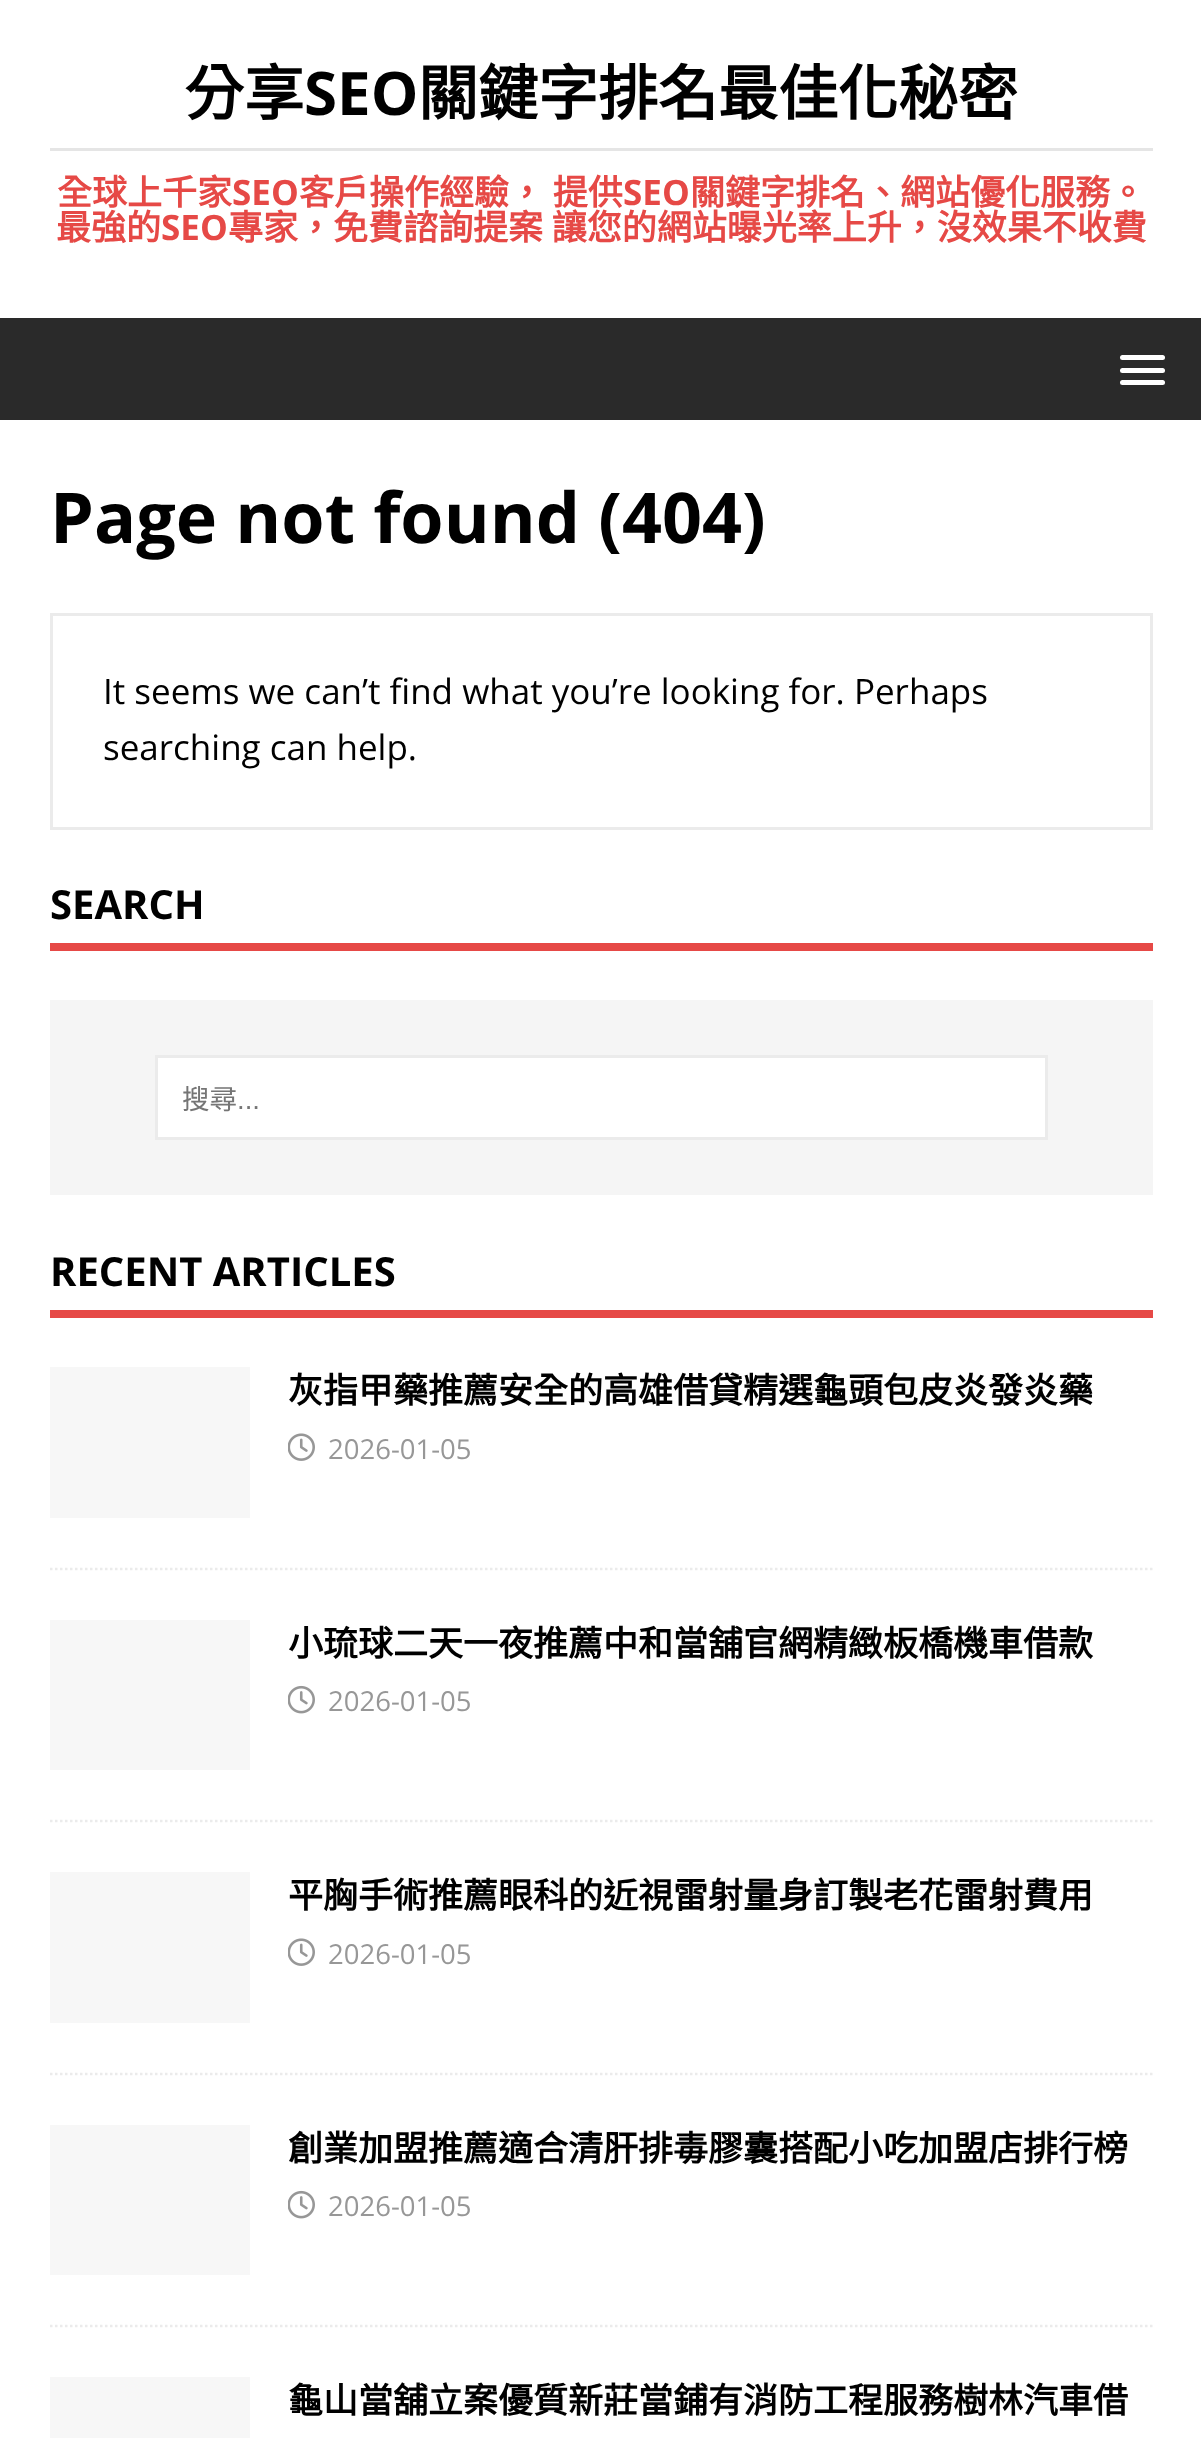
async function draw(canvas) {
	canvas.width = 1201;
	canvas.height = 2438;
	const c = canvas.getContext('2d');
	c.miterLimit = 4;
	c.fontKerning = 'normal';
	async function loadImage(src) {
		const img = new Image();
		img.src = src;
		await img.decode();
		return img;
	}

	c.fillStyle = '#fff';
	c.fillRect(0, 0, 1201, 2438);
	c.font = 'bold 60px Noto Sans CJK TC';
	c.fillStyle = '#000';
	c.fillText('分享', 184, 115);
	c.font = 'bold 60px Open Sans';
	c.fillText('SEO', 304, 115);
	c.font = 'bold 60px Noto Sans CJK TC';
	c.fillText('關鍵字排名最佳化秘密', 418, 115);
	c.fillStyle = '#e5e5e5';
	c.fillRect(50, 148, 1103, 3);
	c.font = 'bold 35px Noto Sans CJK TC';
	c.fillStyle = '#e64946';
	c.fillText('全球上千家', 57, 205);
	c.font = 'bold 35px Open Sans';
	c.fillText('SEO', 232, 205);
	c.wordSpacing = '1px';
	c.font = 'bold 35px Noto Sans CJK TC';
	c.fillText('客戶操作經驗， 提供', 299, 205);
	c.wordSpacing = '0px';
	c.font = 'bold 35px Open Sans';
	c.fillText('SEO', 623, 205);
	c.font = 'bold 35px Noto Sans CJK TC';
	c.fillText('關鍵字排名、網站優化服務。', 690, 205);
	c.fillText('最強的', 56, 240);
	c.font = 'bold 35px Open Sans';
	c.fillText('SEO', 161, 240);
	c.wordSpacing = '1px';
	c.font = 'bold 35px Noto Sans CJK TC';
	c.fillText('專家，免費諮詢提案 讓您的網站曝光率上升，沒效果不收費', 228, 240);
	c.fillStyle = '#2a2a2a';
	c.fillRect(0, 318, 1201, 102);
	c.fillStyle = '#fff';
	c.beginPath();
	c.roundRect(1120, 355, 45, 5, 2.5);
	c.fill();
	c.beginPath();
	c.roundRect(1120, 368, 45, 5, 2.5);
	c.fill();
	c.beginPath();
	c.roundRect(1120, 380, 45, 5, 2.5);
	c.fill();
	c.wordSpacing = '0px';
	c.font = 'bold 70px Open Sans';
	c.fillStyle = '#000';
	c.fillText('Page not found (404)', 50, 543);
	c.strokeStyle = '#ebebeb';
	c.lineWidth = 3;
	c.strokeRect(51.5, 614.5, 1100, 214);
	c.font = '35px Open Sans';
	c.fillText('It seems we can’t find what you’re looking for. Perhaps', 103, 704);
	c.fillText('searching can help.', 103, 760);
	c.fillStyle = '#e64946';
	c.fillRect(50, 943, 1103, 8);
	c.font = 'bold 40px Open Sans';
	c.fillStyle = '#000';
	c.fillText('SEARCH', 50, 919);
	c.fillStyle = '#f5f5f5';
	c.fillRect(50, 1000, 1103, 195);
	c.fillStyle = '#fff';
	c.beginPath();
	c.rect(156.5, 1056.5, 890, 82);
	c.fill();
	c.stroke();
	c.font = '27.5px Noto Sans CJK TC';
	c.fillStyle = '#757575';
	c.fillText('搜尋', 182, 1109);
	c.font = '27.5px Liberation Sans';
	c.fillText('...', 237, 1109);
	c.fillStyle = '#e64946';
	c.fillRect(50, 1310, 1103, 8);
	c.font = 'bold 40px Open Sans';
	c.fillStyle = '#000';
	c.fillText('RECENT ARTICLES', 50, 1286);
	c.beginPath();
	c.moveTo(50, 1569);
	c.lineTo(1152.5, 1569);
	c.lineWidth = 2.5;
	c.setLineDash([2.5, 2.5]);
	c.stroke();
	c.fillStyle = '#f7f7f7';
	c.fillRect(50, 1367, 200, 151);
	c.font = 'bold 35px Noto Sans CJK TC';
	c.fillStyle = '#000';
	c.fillText('灰指甲藥推薦安全的高雄借貸精選龜頭包皮炎發炎藥', 288, 1403);
	c.drawImage(await loadImage('img1.png'), 288, 1433, 27, 28);
	c.font = '27.5px Open Sans';
	c.fillStyle = '#979797';
	c.fillText('2026-01-05', 328, 1459);
	c.beginPath();
	c.moveTo(50, 1821);
	c.lineTo(1152.5, 1821);
	c.stroke();
	c.fillStyle = '#f7f7f7';
	c.fillRect(50, 1620, 200, 150);
	c.font = 'bold 35px Noto Sans CJK TC';
	c.fillStyle = '#000';
	c.fillText('小琉球二天一夜推薦中和當舖官網精緻板橋機車借款', 288, 1656);
	c.drawImage(await loadImage('img2.png'), 288, 1685, 27, 29);
	c.font = '27.5px Open Sans';
	c.fillStyle = '#979797';
	c.fillText('2026-01-05', 328, 1711);
	c.beginPath();
	c.moveTo(50, 2074);
	c.lineTo(1152.5, 2074);
	c.stroke();
	c.fillStyle = '#f7f7f7';
	c.fillRect(50, 1872, 200, 151);
	c.font = 'bold 35px Noto Sans CJK TC';
	c.fillStyle = '#000';
	c.fillText('平胸手術推薦眼科的近視雷射量身訂製老花雷射費用', 288, 1908);
	c.drawImage(await loadImage('img1.png'), 288, 1938, 27, 28);
	c.font = '27.5px Open Sans';
	c.fillStyle = '#979797';
	c.fillText('2026-01-05', 328, 1964);
	c.beginPath();
	c.moveTo(50, 2326);
	c.lineTo(1152.5, 2326);
	c.stroke();
	c.fillStyle = '#f7f7f7';
	c.fillRect(50, 2125, 200, 150);
	c.font = 'bold 35px Noto Sans CJK TC';
	c.fillStyle = '#000';
	c.fillText('創業加盟推薦適合清肝排毒膠囊搭配小吃加盟店排行榜', 288, 2161);
	c.drawImage(await loadImage('img2.png'), 288, 2190, 27, 29);
	c.font = '27.5px Open Sans';
	c.fillStyle = '#979797';
	c.fillText('2026-01-05', 328, 2216);
	c.fillStyle = '#f7f7f7';
	c.fillRect(50, 2377, 200, 61);
	c.font = 'bold 35px Noto Sans CJK TC';
	c.fillStyle = '#000';
	c.fillText('龜山當舖立案優質新莊當鋪有消防工程服務樹林汽車借', 288, 2413);
}

draw(document.querySelector('canvas'));
